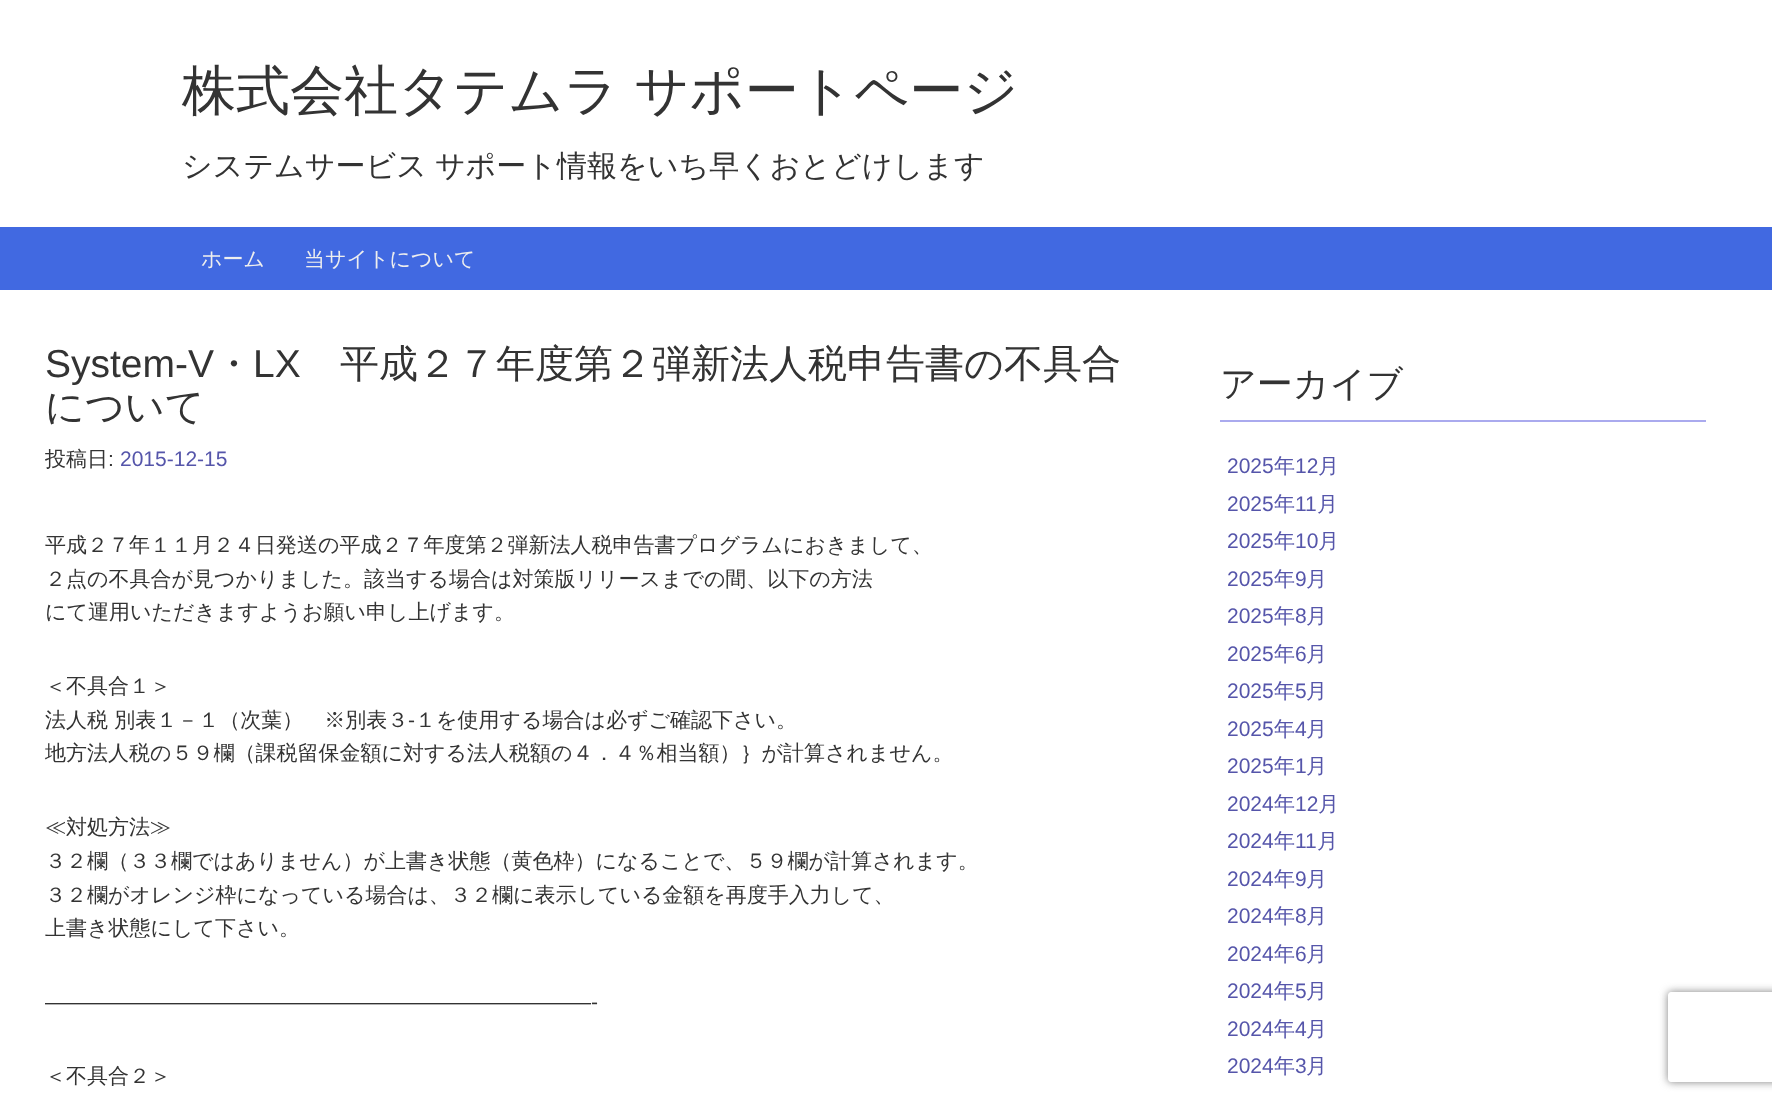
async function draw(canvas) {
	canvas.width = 1772;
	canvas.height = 1102;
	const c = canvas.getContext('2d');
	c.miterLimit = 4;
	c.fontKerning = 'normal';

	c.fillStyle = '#fff';
	c.fillRect(0, 0, 1772, 1102);
	c.wordSpacing = '-1px';
	c.font = '500 54px WenQuanYi Zen Hei';
	c.fillStyle = '#333';
	c.fillText('株式会社タテムラ サポートページ', 182, 109);
	c.font = '500 30px WenQuanYi Zen Hei';
	c.fillText('システムサービス サポート情報をいち早くおとどけします', 182, 176);
	c.fillStyle = '#4169e1';
	c.fillRect(0, 227, 1772, 63);
	c.wordSpacing = '0px';
	c.font = '500 21px WenQuanYi Zen Hei';
	c.fillStyle = '#eee';
	c.fillText('ホーム', 201, 266);
	c.fillText('当サイトについて', 304, 266);
	c.font = '39px Liberation Sans';
	c.fillStyle = '#333';
	c.fillText('System-V', 45, 377);
	c.font = '500 39px WenQuanYi Zen Hei';
	c.fillText('・', 214, 377);
	c.font = '39px Liberation Sans';
	c.fillText('LX', 253, 377);
	c.font = '500 39px WenQuanYi Zen Hei';
	c.fillText('平成２７年度第２弾新法人税申告書の不具合', 340, 377);
	c.fillText('について', 45, 420);
	c.font = '500 21px WenQuanYi Zen Hei';
	c.fillText('投稿日', 45, 466);
	c.font = '21px Liberation Sans';
	c.fillText(':', 108, 466);
	c.fillStyle = '#55a';
	c.fillText('2015-12-15', 120, 466);
	c.font = '500 21px WenQuanYi Zen Hei';
	c.fillStyle = '#333';
	for (const [text, x, y] of [
		['平成２７年１１月２４日発送の平成２７年度第２弾新法人税申告書プログラムにおきまして、', 45, 552],
		['２点の不具合が見つかりました。該当する場合は対策版リリースまでの間、以下の方法', 45, 586],
		['にて運用いただきますようお願い申し上げます。', 45, 619],
		['＜不具合１＞', 45, 693],
		['法人税 別表１－１（次葉）　※別表３', 45, 727],
	]) {
		c.fillText(text, x, y);
	}
	c.font = '21px Liberation Sans';
	c.fillText('-', 408, 727);
	c.font = '500 21px WenQuanYi Zen Hei';
	for (const [text, x, y] of [
		['１を使用する場合は必ずご確認下さい。', 415, 727],
		['地方法人税の５９欄（課税留保金額に対する法人税額の４．４％相当額）｝が計算されません。', 45, 760],
		['≪対処方法≫', 45, 834],
		['３２欄（３３欄ではありません）が上書き状態（黄色枠）になることで、５９欄が計算されます。', 45, 868],
		['３２欄がオレンジ枠になっている場合は、３２欄に表示している金額を再度手入力して、', 45, 902],
		['上書き状態にして下さい。', 45, 935],
	]) {
		c.fillText(text, x, y);
	}
	c.font = '21px Liberation Sans';
	c.fillText('——————————————————————————-', 45, 1009);
	c.font = '500 21px WenQuanYi Zen Hei';
	c.fillText('＜不具合２＞', 45, 1083);
	c.fillStyle = '#aae';
	c.fillRect(1220, 420, 486, 2);
	c.font = '500 36px WenQuanYi Zen Hei';
	c.fillStyle = '#333';
	c.fillText('アーカイブ', 1220, 396);
	c.font = '21px Liberation Sans';
	c.fillStyle = '#55a';
	c.fillText('2025', 1227, 473);
	c.font = '500 21px WenQuanYi Zen Hei';
	c.fillText('年', 1274, 473);
	c.font = '21px Liberation Sans';
	c.fillText('12', 1295, 473);
	c.font = '500 21px WenQuanYi Zen Hei';
	c.fillText('月', 1318, 473);
	c.font = '21px Liberation Sans';
	c.fillText('2025', 1227, 511);
	c.font = '500 21px WenQuanYi Zen Hei';
	c.fillText('年', 1274, 511);
	c.font = '21px Liberation Sans';
	c.fillText('11', 1295, 511);
	c.font = '500 21px WenQuanYi Zen Hei';
	c.fillText('月', 1317, 511);
	c.font = '21px Liberation Sans';
	c.fillText('2025', 1227, 548);
	c.font = '500 21px WenQuanYi Zen Hei';
	c.fillText('年', 1274, 548);
	c.font = '21px Liberation Sans';
	c.fillText('10', 1295, 548);
	c.font = '500 21px WenQuanYi Zen Hei';
	c.fillText('月', 1318, 548);
	c.font = '21px Liberation Sans';
	c.fillText('2025', 1227, 586);
	c.font = '500 21px WenQuanYi Zen Hei';
	c.fillText('年', 1274, 586);
	c.font = '21px Liberation Sans';
	c.fillText('9', 1295, 586);
	c.font = '500 21px WenQuanYi Zen Hei';
	c.fillText('月', 1306, 586);
	c.font = '21px Liberation Sans';
	c.fillText('2025', 1227, 623);
	c.font = '500 21px WenQuanYi Zen Hei';
	c.fillText('年', 1274, 623);
	c.font = '21px Liberation Sans';
	c.fillText('8', 1295, 623);
	c.font = '500 21px WenQuanYi Zen Hei';
	c.fillText('月', 1306, 623);
	c.font = '21px Liberation Sans';
	c.fillText('2025', 1227, 661);
	c.font = '500 21px WenQuanYi Zen Hei';
	c.fillText('年', 1274, 661);
	c.font = '21px Liberation Sans';
	c.fillText('6', 1295, 661);
	c.font = '500 21px WenQuanYi Zen Hei';
	c.fillText('月', 1306, 661);
	c.font = '21px Liberation Sans';
	c.fillText('2025', 1227, 698);
	c.font = '500 21px WenQuanYi Zen Hei';
	c.fillText('年', 1274, 698);
	c.font = '21px Liberation Sans';
	c.fillText('5', 1295, 698);
	c.font = '500 21px WenQuanYi Zen Hei';
	c.fillText('月', 1306, 698);
	c.font = '21px Liberation Sans';
	c.fillText('2025', 1227, 736);
	c.font = '500 21px WenQuanYi Zen Hei';
	c.fillText('年', 1274, 736);
	c.font = '21px Liberation Sans';
	c.fillText('4', 1295, 736);
	c.font = '500 21px WenQuanYi Zen Hei';
	c.fillText('月', 1306, 736);
	c.font = '21px Liberation Sans';
	c.fillText('2025', 1227, 773);
	c.font = '500 21px WenQuanYi Zen Hei';
	c.fillText('年', 1274, 773);
	c.font = '21px Liberation Sans';
	c.fillText('1', 1295, 773);
	c.font = '500 21px WenQuanYi Zen Hei';
	c.fillText('月', 1306, 773);
	c.font = '21px Liberation Sans';
	c.fillText('2024', 1227, 811);
	c.font = '500 21px WenQuanYi Zen Hei';
	c.fillText('年', 1274, 811);
	c.font = '21px Liberation Sans';
	c.fillText('12', 1295, 811);
	c.font = '500 21px WenQuanYi Zen Hei';
	c.fillText('月', 1318, 811);
	c.font = '21px Liberation Sans';
	c.fillText('2024', 1227, 848);
	c.font = '500 21px WenQuanYi Zen Hei';
	c.fillText('年', 1274, 848);
	c.font = '21px Liberation Sans';
	c.fillText('11', 1295, 848);
	c.font = '500 21px WenQuanYi Zen Hei';
	c.fillText('月', 1317, 848);
	c.font = '21px Liberation Sans';
	c.fillText('2024', 1227, 886);
	c.font = '500 21px WenQuanYi Zen Hei';
	c.fillText('年', 1274, 886);
	c.font = '21px Liberation Sans';
	c.fillText('9', 1295, 886);
	c.font = '500 21px WenQuanYi Zen Hei';
	c.fillText('月', 1306, 886);
	c.font = '21px Liberation Sans';
	c.fillText('2024', 1227, 923);
	c.font = '500 21px WenQuanYi Zen Hei';
	c.fillText('年', 1274, 923);
	c.font = '21px Liberation Sans';
	c.fillText('8', 1295, 923);
	c.font = '500 21px WenQuanYi Zen Hei';
	c.fillText('月', 1306, 923);
	c.font = '21px Liberation Sans';
	c.fillText('2024', 1227, 961);
	c.font = '500 21px WenQuanYi Zen Hei';
	c.fillText('年', 1274, 961);
	c.font = '21px Liberation Sans';
	c.fillText('6', 1295, 961);
	c.font = '500 21px WenQuanYi Zen Hei';
	c.fillText('月', 1306, 961);
	c.font = '21px Liberation Sans';
	c.fillText('2024', 1227, 998);
	c.font = '500 21px WenQuanYi Zen Hei';
	c.fillText('年', 1274, 998);
	c.font = '21px Liberation Sans';
	c.fillText('5', 1295, 998);
	c.font = '500 21px WenQuanYi Zen Hei';
	c.fillText('月', 1306, 998);
	c.font = '21px Liberation Sans';
	c.fillText('2024', 1227, 1036);
	c.font = '500 21px WenQuanYi Zen Hei';
	c.fillText('年', 1274, 1036);
	c.font = '21px Liberation Sans';
	c.fillText('4', 1295, 1036);
	c.font = '500 21px WenQuanYi Zen Hei';
	c.fillText('月', 1306, 1036);
	c.font = '21px Liberation Sans';
	c.fillText('2024', 1227, 1073);
	c.font = '500 21px WenQuanYi Zen Hei';
	c.fillText('年', 1274, 1073);
	c.font = '21px Liberation Sans';
	c.fillText('3', 1295, 1073);
	c.font = '500 21px WenQuanYi Zen Hei';
	c.fillText('月', 1306, 1073);
	c.save();
	c.beginPath();
	c.moveTo(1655, 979);
	c.lineTo(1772, 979);
	c.lineTo(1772, 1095);
	c.lineTo(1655, 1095);
	c.closePath();
	c.moveTo(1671, 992);
	c.lineTo(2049, 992);
	c.bezierCurveTo(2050.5, 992, 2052, 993.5, 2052, 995);
	c.lineTo(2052, 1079);
	c.bezierCurveTo(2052, 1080.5, 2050.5, 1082, 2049, 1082);
	c.lineTo(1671, 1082);
	c.bezierCurveTo(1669.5, 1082, 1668, 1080.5, 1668, 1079);
	c.lineTo(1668, 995);
	c.bezierCurveTo(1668, 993.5, 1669.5, 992, 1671, 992);
	c.closePath();
	c.clip('evenodd');
	c.fillStyle = '#808080';
	c.filter = 'blur(4px)';
	c.beginPath();
	c.roundRect(1668, 992, 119, 90, 3);
	c.fill();
	c.filter = 'none';
	c.restore();
}

draw(document.querySelector('canvas'));
